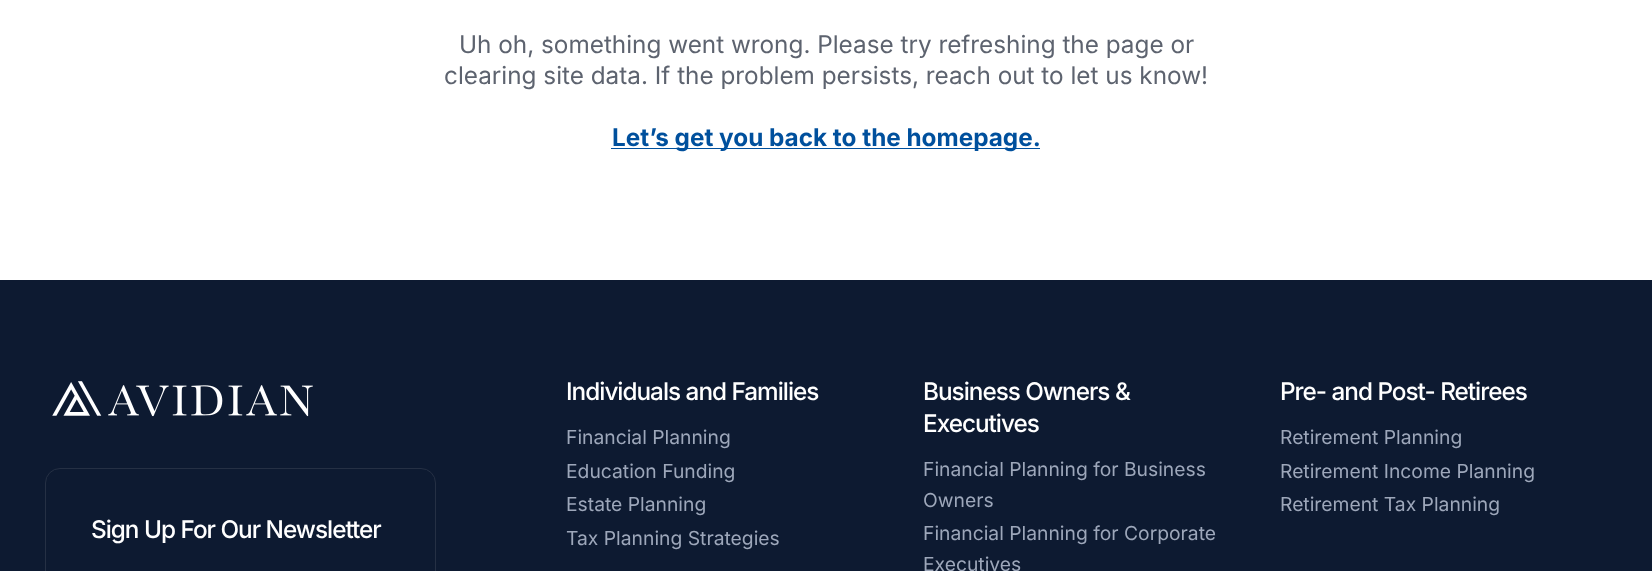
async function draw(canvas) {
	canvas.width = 1652;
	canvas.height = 571;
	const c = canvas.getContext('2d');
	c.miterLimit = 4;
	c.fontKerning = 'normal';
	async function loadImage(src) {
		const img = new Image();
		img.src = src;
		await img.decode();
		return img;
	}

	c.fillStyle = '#0d1a31';
	c.fillRect(0, 0, 1652, 571);
	c.fillStyle = '#fff';
	c.fillRect(0, 0, 1652, 280);
	c.font = '24.3px Inter';
	c.fillStyle = '#5d636f';
	c.fillText('Uh oh, something went wrong. Please try refreshing the page or', 459, 53);
	c.fillText('clearing site data. If the problem persists, reach out to let us know!', 444, 84);
	c.fillStyle = '#00509d';
	c.fillRect(611, 148, 429, 1);
	c.font = 'bold 24.3px Inter';
	c.fillText('Let’s get you back to the homepage.', 612, 146);
	c.drawImage(await loadImage('img1.png'), 52, 381, 261, 36);
	c.beginPath();
	c.roundRect(45.5, 468.5, 390, 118, 14.5);
	c.strokeStyle = '#253044';
	c.stroke();
	c.letterSpacing = '-1px';
	c.font = '500 24.3px Inter';
	c.fillStyle = '#fff';
	c.fillText('Sign Up For Our Newsletter', 91, 538);
	c.fillText('Individuals and Families', 566, 400);
	c.letterSpacing = '0px';
	c.font = '19.3px Inter';
	c.fillStyle = '#9da7ba';
	for (const [text, x, y] of [
		['Financial Planning', 566, 444],
		['Education Funding', 566, 478],
		['Estate Planning', 566, 511],
		['Tax Planning Strategies', 566, 545],
	]) {
		c.fillText(text, x, y);
	}
	c.letterSpacing = '-1px';
	c.font = '500 24.3px Inter';
	c.fillStyle = '#fff';
	c.fillText('Business Owners &', 923, 400);
	c.fillText('Executives', 923, 432);
	c.letterSpacing = '0px';
	c.font = '19.3px Inter';
	c.fillStyle = '#9da7ba';
	for (const [text, x, y] of [
		['Financial Planning for Business', 923, 476],
		['Owners', 923, 507],
		['Financial Planning for Corporate', 923, 540],
		['Executives', 923, 571],
	]) {
		c.fillText(text, x, y);
	}
	c.letterSpacing = '-1px';
	c.font = '500 24.3px Inter';
	c.fillStyle = '#fff';
	c.fillText('Pre- and Post- Retirees', 1280, 400);
	c.letterSpacing = '0px';
	c.font = '19.3px Inter';
	c.fillStyle = '#9da7ba';
	for (const [text, x, y] of [
		['Retirement Planning', 1280, 444],
		['Retirement Income Planning', 1280, 478],
		['Retirement Tax Planning', 1280, 511],
	]) {
		c.fillText(text, x, y);
	}
}

draw(document.querySelector('canvas'));
